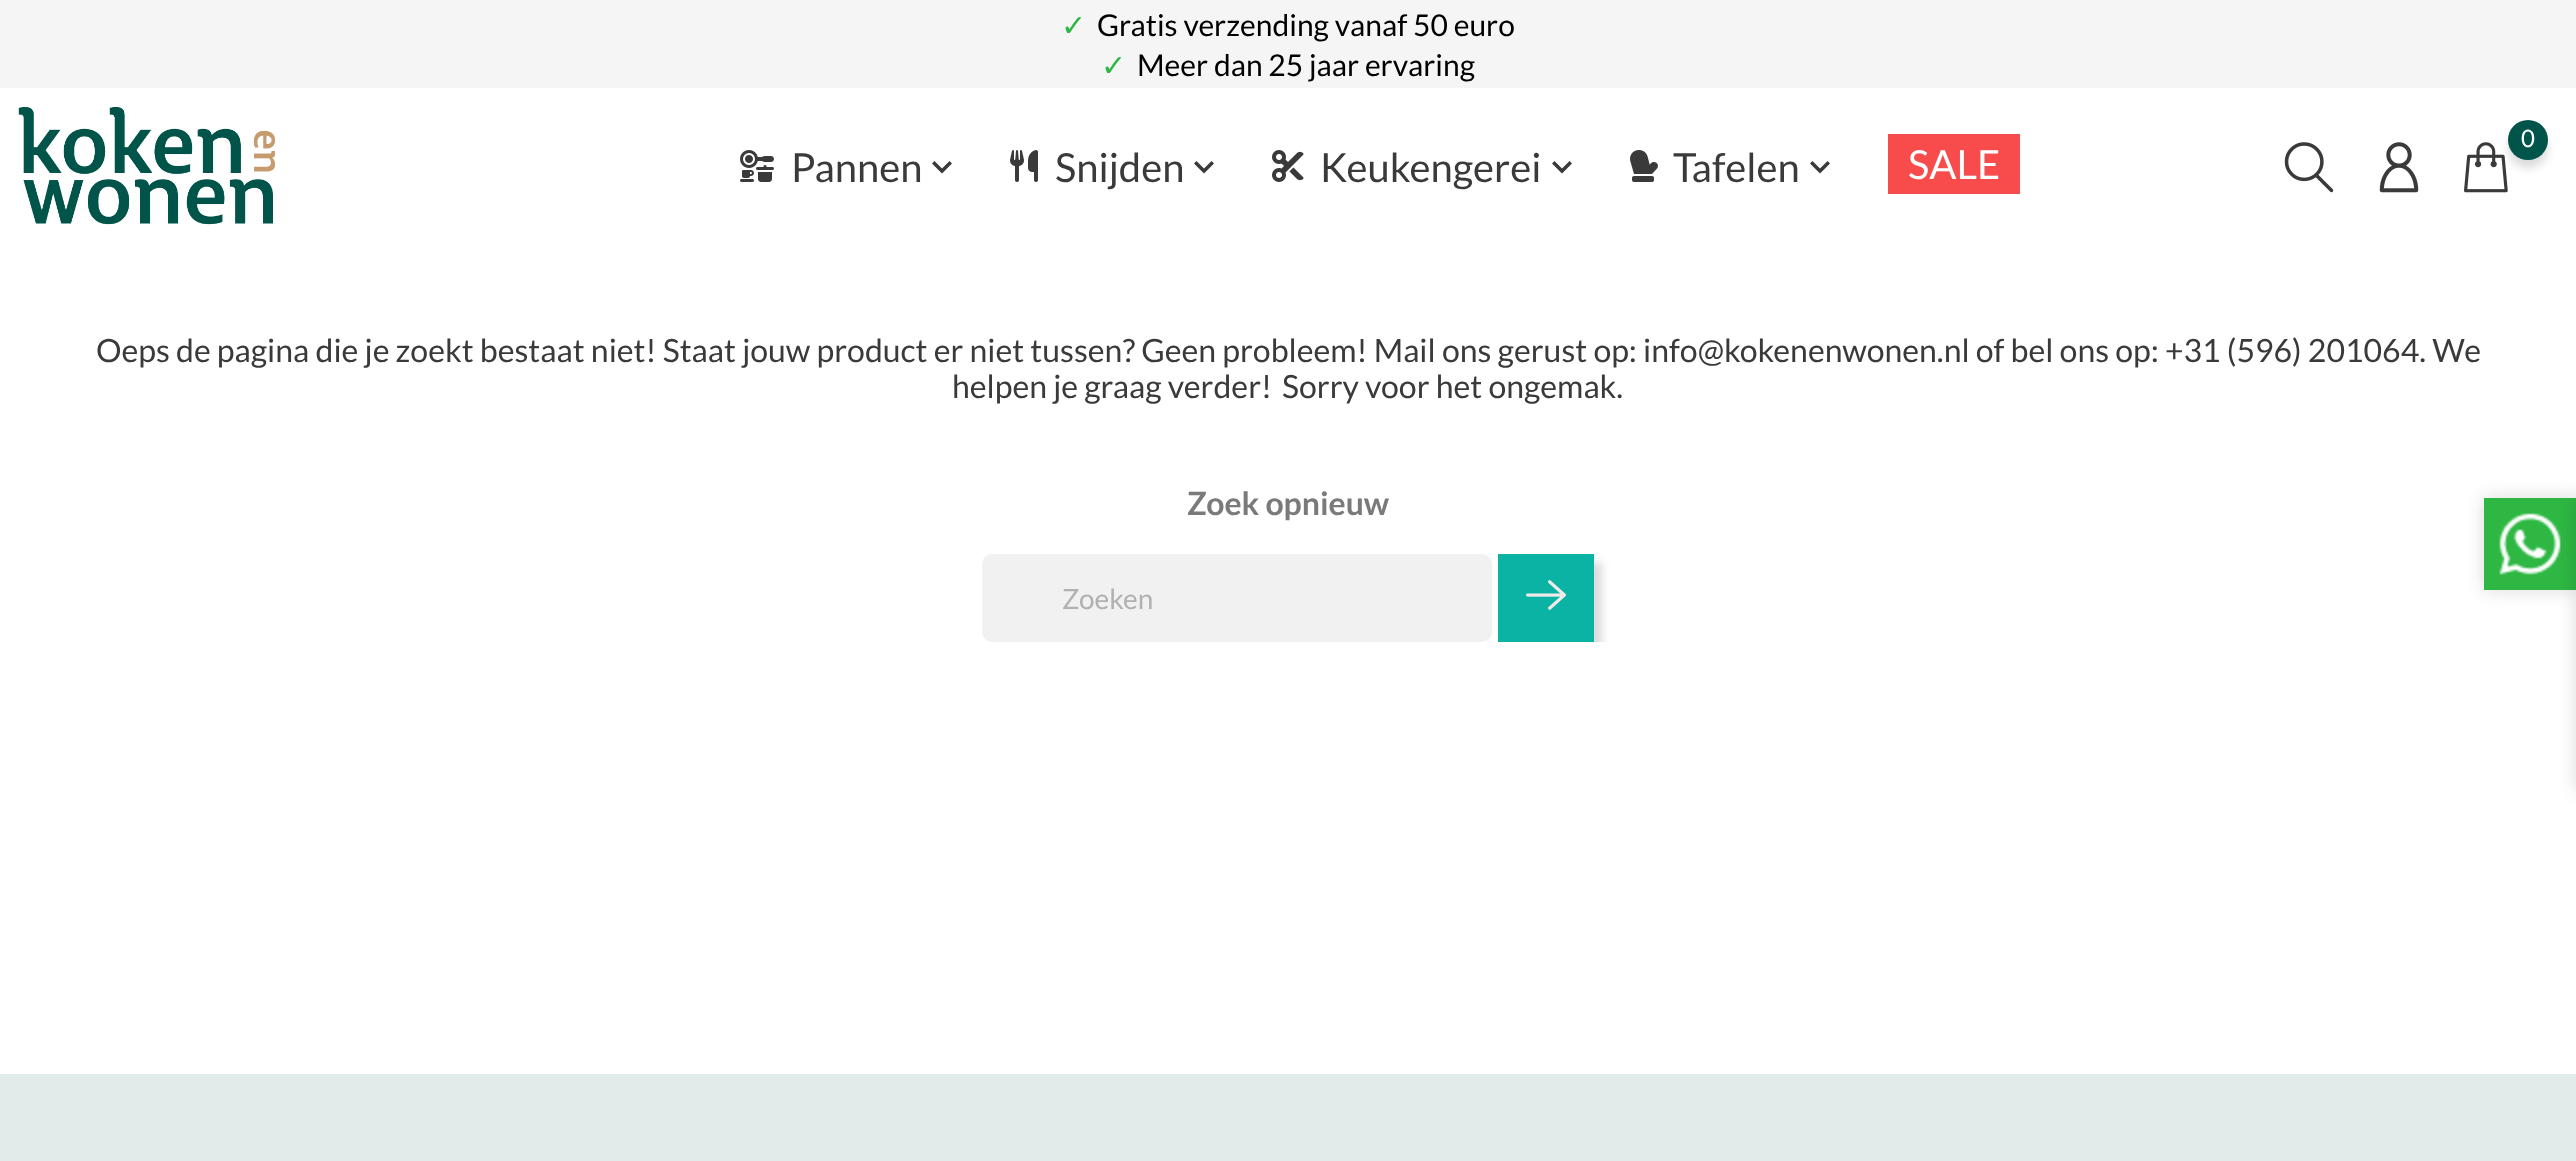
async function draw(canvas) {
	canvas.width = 2576;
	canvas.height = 1161;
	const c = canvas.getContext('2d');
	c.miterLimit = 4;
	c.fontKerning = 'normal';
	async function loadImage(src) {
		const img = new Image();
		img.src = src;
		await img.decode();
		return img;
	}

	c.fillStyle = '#fff';
	c.fillRect(0, 0, 2576, 1161);
	c.fillStyle = '#f5f5f5';
	c.fillRect(0, 0, 2576, 88);
	c.font = '30px DejaVu Sans';
	c.fillStyle = '#2fb744';
	c.fillText('✓', 1061, 36);
	c.font = '30px Lato';
	c.fillStyle = '#000';
	c.fillText('Gratis verzending vanaf 50 euro', 1097, 36);
	c.font = '30px DejaVu Sans';
	c.fillStyle = '#2fb744';
	c.fillText('✓', 1101, 76);
	c.font = '30px Lato';
	c.fillStyle = '#000';
	c.fillText('Meer dan 25 jaar ervaring', 1137, 76);
	c.drawImage(await loadImage('img1.png'), 18, 106, 257, 119);
	c.drawImage(await loadImage('img2.png'), 2464, 142, 44, 51);
	c.fillStyle = '#00000024';
	c.filter = 'blur(4px)';
	c.beginPath();
	c.roundRect(2508, 128, 40, 40, 20);
	c.fill();
	c.filter = 'none';
	c.fillStyle = '#01544a';
	c.beginPath();
	c.arc(2528, 140, 20, 0, 2 * Math.PI);
	c.fill();
	c.font = '24px Lato';
	c.fillStyle = '#fff';
	c.fillText('0', 2521, 147);
	c.drawImage(await loadImage('img3.png'), 2284, 142, 50, 51);
	c.drawImage(await loadImage('img4.png'), 2379, 142, 40, 51);
	c.drawImage(await loadImage('img5.png'), 740, 150, 34, 32);
	c.font = '40px Lato';
	c.fillStyle = '#3a3a3a';
	c.fillText('Pannen', 791, 182);
	c.beginPath();
	c.moveTo(934.5, 161);
	c.lineTo(942, 168.5);
	c.lineTo(949.5, 161);
	c.lineTo(952, 163.5);
	c.lineTo(942, 173.5);
	c.lineTo(932, 163.5);
	c.closePath();
	c.fill();
	c.drawImage(await loadImage('img6.png'), 1010, 150, 28, 32);
	c.fillText('Snijden', 1055, 182);
	c.beginPath();
	c.moveTo(1196.5, 161);
	c.lineTo(1204, 168.5);
	c.lineTo(1211.5, 161);
	c.lineTo(1214, 163.5);
	c.lineTo(1204, 173.5);
	c.lineTo(1194, 163.5);
	c.closePath();
	c.fill();
	c.drawImage(await loadImage('img7.png'), 1272, 150, 32, 32);
	c.fillText('Keukengerei', 1320, 182);
	c.beginPath();
	c.moveTo(1554.5, 161);
	c.lineTo(1562, 168.5);
	c.lineTo(1569.5, 161);
	c.lineTo(1572, 163.5);
	c.lineTo(1562, 173.5);
	c.lineTo(1552, 163.5);
	c.closePath();
	c.fill();
	c.drawImage(await loadImage('img8.png'), 1630, 150, 28, 32);
	c.fillText('Tafelen', 1673, 182);
	c.beginPath();
	c.moveTo(1812.5, 161);
	c.lineTo(1820, 168.5);
	c.lineTo(1827.5, 161);
	c.lineTo(1830, 163.5);
	c.lineTo(1820, 173.5);
	c.lineTo(1810, 163.5);
	c.closePath();
	c.fill();
	c.fillStyle = '#f84c4c';
	c.fillRect(1888, 134, 132, 60);
	c.fillStyle = '#fff';
	c.fillText('SALE', 1908, 179);
	c.font = '32px Lato';
	c.fillStyle = '#3a3a3a';
	for (const [text, x, y] of [
		['Oeps de pagina die je zoekt bestaat niet! Staat jouw product er niet tussen? Geen probleem! Mail ons gerust op: info@kokenenwonen.nl of bel ons op: +31 (596) 201064. We', 96, 362],
		['helpen je graag verder!', 952, 398],
		['Sorry voor het ongemak.', 1282, 398],
	]) {
		c.fillText(text, x, y);
	}
	c.font = 'bold 32px Lato';
	c.fillStyle = '#7a7a7a';
	c.fillText('Zoek opnieuw', 1187, 515);
	c.fillStyle = '#f1f1f1';
	c.beginPath();
	c.roundRect(982, 554, 510, 88, 10);
	c.fill();
	c.font = '28px Lato';
	c.fillStyle = '#b1b1b1';
	c.fillText('Zoeken', 1062, 609);
	c.save();
	c.beginPath();
	c.rect(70, 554, 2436, 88);
	c.clip();
	c.fillStyle = '#00000024';
	c.filter = 'blur(4px)';
	c.beginPath();
	c.rect(1506, 562, 96, 88);
	c.fill();
	c.filter = 'none';
	c.restore();
	c.fillStyle = '#0ab3a3';
	c.fillRect(1498, 554, 96, 88);
	c.drawImage(await loadImage('img9.png'), 1526, 580, 40, 30);
	c.fillStyle = '#00000026';
	c.filter = 'blur(9px)';
	c.beginPath();
	c.rect(2484, 498, 92, 92);
	c.fill();
	c.filter = 'none';
	c.fillStyle = '#2eb743';
	c.fillRect(2484, 498, 92, 92);
	c.drawImage(await loadImage('img10.png'), 2499, 513, 62, 62);
	c.fillStyle = '#00000026';
	c.filter = 'blur(9px)';
	c.beginPath();
	c.rect(2576, 498, 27, 292);
	c.fill();
	c.filter = 'none';
	c.fillStyle = '#e3ebea';
	c.fillRect(0, 1074, 2576, 87);
}

draw(document.querySelector('canvas'));
